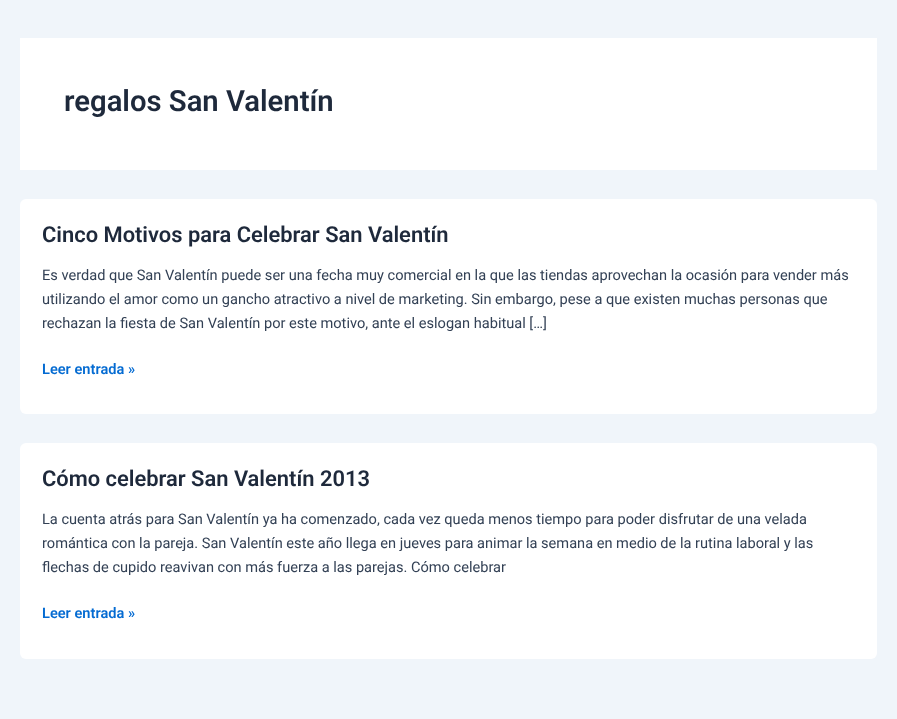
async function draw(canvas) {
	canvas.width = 897;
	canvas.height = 719;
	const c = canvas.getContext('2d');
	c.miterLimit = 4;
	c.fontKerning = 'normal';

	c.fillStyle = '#f0f5fa';
	c.fillRect(0, 0, 897, 719);
	c.fillStyle = '#fff';
	c.fillRect(20, 38, 857, 132);
	c.font = '600 29.25px Roboto';
	c.fillStyle = '#1e293b';
	c.fillText('regalos San Valentín', 64, 111);
	c.fillStyle = '#fff';
	c.beginPath();
	c.roundRect(20, 199, 857, 215, 6);
	c.fill();
	c.font = '600 21.9px Roboto';
	c.fillStyle = '#1e293b';
	c.fillText('Cinco Motivos para Celebrar San Valentín', 42, 242);
	c.font = '14.6px Roboto';
	c.fillStyle = '#334155';
	for (const [text, x, y] of [
		['Es verdad que San Valentín puede ser una fecha muy comercial en la que las tiendas aprovechan la ocasión para vender más', 42, 280],
		['utilizando el amor como un gancho atractivo a nivel de marketing. Sin embargo, pese a que existen muchas personas que', 42, 304],
		['rechazan la fiesta de San Valentín por este motivo, ante el eslogan habitual […]', 42, 328],
	]) {
		c.fillText(text, x, y);
	}
	c.font = '600 14.6px Roboto';
	c.fillStyle = '#046bd2';
	c.fillText('Leer entrada »', 42, 374);
	c.fillStyle = '#fff';
	c.beginPath();
	c.roundRect(20, 443, 857, 216, 6);
	c.fill();
	c.font = '600 21.9px Roboto';
	c.fillStyle = '#1e293b';
	c.fillText('Cómo celebrar San Valentín 2013', 42, 486);
	c.font = '14.6px Roboto';
	c.fillStyle = '#334155';
	for (const [text, x, y] of [
		['La cuenta atrás para San Valentín ya ha comenzado, cada vez queda menos tiempo para poder disfrutar de una velada', 42, 524],
		['romántica con la pareja. San Valentín este año llega en jueves para animar la semana en medio de la rutina laboral y las', 42, 548],
		['flechas de cupido reavivan con más fuerza a las parejas. Cómo celebrar', 42, 572],
	]) {
		c.fillText(text, x, y);
	}
	c.font = '600 14.6px Roboto';
	c.fillStyle = '#046bd2';
	c.fillText('Leer entrada »', 42, 618);
}

draw(document.querySelector('canvas'));
